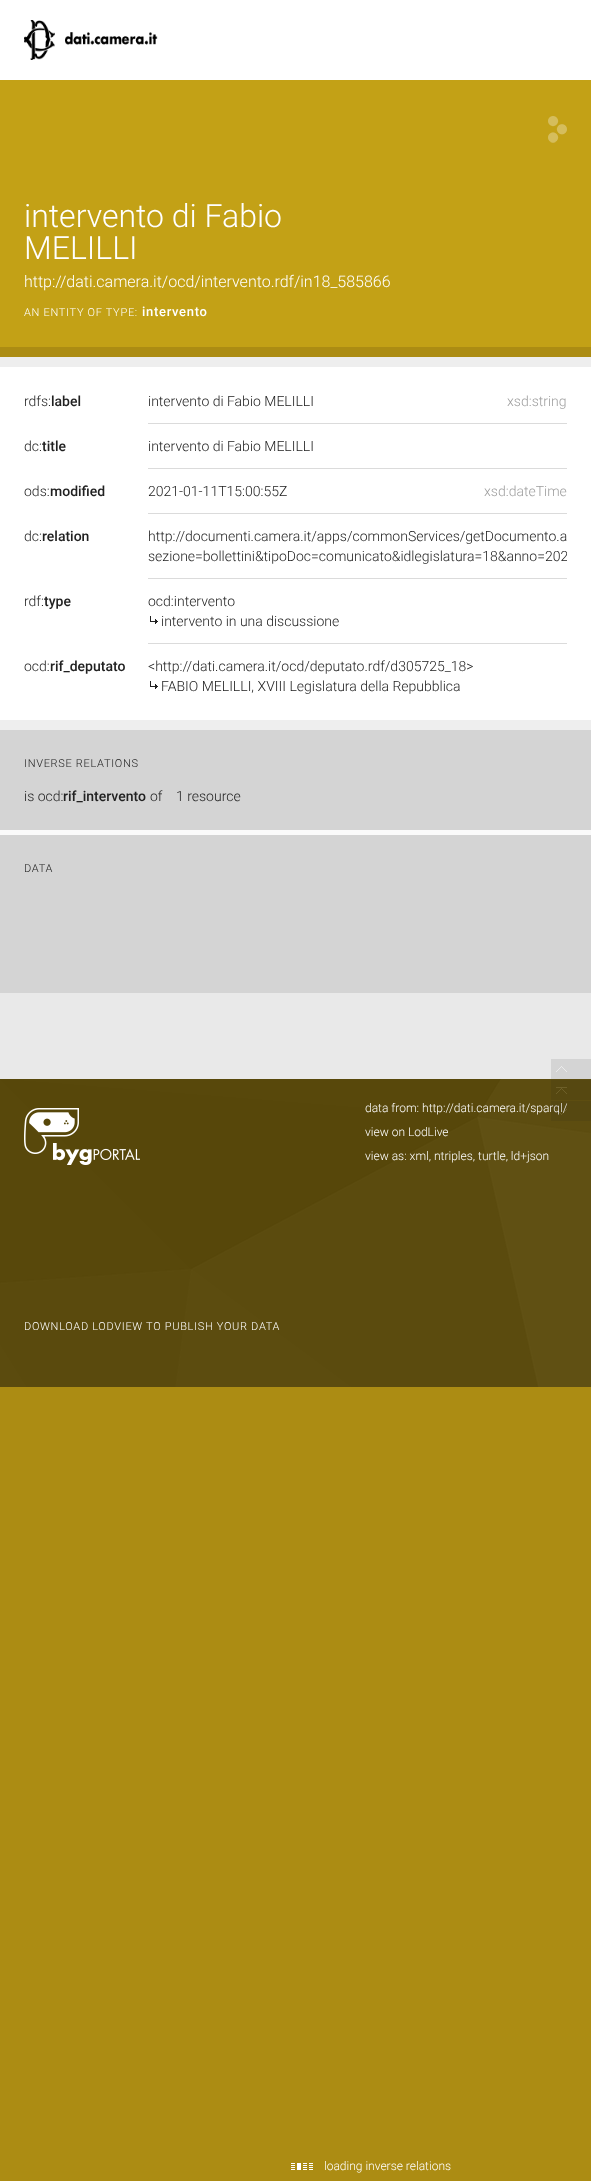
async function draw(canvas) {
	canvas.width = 591;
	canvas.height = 2181;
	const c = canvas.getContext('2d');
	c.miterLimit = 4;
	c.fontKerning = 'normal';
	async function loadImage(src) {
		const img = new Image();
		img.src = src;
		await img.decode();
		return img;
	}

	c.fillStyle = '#ac8c13';
	c.fillRect(0, 0, 591, 2181);
	c.fillStyle = '#fff';
	c.fillRect(0, 0, 591, 80);
	c.drawImage(await loadImage('img1.png'), 24, 20, 134, 40);
	c.fillStyle = '#c3a116';
	c.fillRect(0, 80, 591, 267);
	c.font = '300 32px Roboto';
	c.fillStyle = '#fff';
	c.fillText('intervento di Fabio', 24, 227);
	c.fillText('MELILLI', 24, 259);
	c.drawImage(await loadImage('img2.png'), 548, 116, 19, 27);
	c.font = '300 16px Roboto';
	c.fillText('http://dati.camera.it/ocd/intervento.rdf/in18_585866', 24, 287);
	c.letterSpacing = '0.7px';
	c.font = '300 11px Roboto';
	c.fillText('AN ENTITY OF TYPE:', 24, 316);
	c.font = '500 13px Roboto';
	c.fillText('intervento', 142, 316);
	c.fillStyle = '#eee';
	c.fillRect(0, 357, 591, 10);
	c.fillStyle = '#fff';
	c.fillRect(0, 367, 591, 353);
	c.letterSpacing = '0px';
	c.font = '300 14px Roboto';
	c.fillStyle = '#212121';
	c.fillText('rdfs:', 24, 406);
	c.font = '500 14px Roboto';
	c.fillText('label', 51, 406);
	c.fillStyle = '#dbdbdb';
	c.fillRect(148, 423, 419, 1);
	c.font = '300 14px Roboto';
	c.fillStyle = '#212121';
	c.fillText('intervento di Fabio MELILLI', 148, 406);
	c.fillStyle = '#9e9e9e';
	c.fillText('xsd:string', 507, 406);
	c.fillStyle = '#212121';
	c.fillText('dc:', 24, 451);
	c.font = '500 14px Roboto';
	c.fillText('title', 42, 451);
	c.fillStyle = '#dbdbdb';
	c.fillRect(148, 468, 419, 1);
	c.font = '300 14px Roboto';
	c.fillStyle = '#212121';
	c.fillText('intervento di Fabio MELILLI', 148, 451);
	c.fillText('ods:', 24, 496);
	c.font = '500 14px Roboto';
	c.fillText('modified', 50, 496);
	c.fillStyle = '#dbdbdb';
	c.fillRect(148, 513, 419, 1);
	c.font = '300 14px Roboto';
	c.fillStyle = '#212121';
	c.fillText('2021-01-11T15:00:55Z', 148, 496);
	c.fillStyle = '#9e9e9e';
	c.fillText('xsd:dateTime', 484, 496);
	c.fillStyle = '#212121';
	c.fillText('dc:', 24, 541);
	c.font = '500 14px Roboto';
	c.fillText('relation', 42, 541);
	c.fillStyle = '#dbdbdb';
	c.fillRect(148, 578, 419, 1);
	c.font = '300 14px Roboto';
	c.fillStyle = '#212121';
	c.fillText('http://documenti.camera.it/apps/commonServices/getDocumento.a', 148, 541);
	c.save();
	c.beginPath();
	c.rect(148, 526, 419, 40);
	c.clip();
	c.fillText('sezione=bollettini&tipoDoc=comunicato&idlegislatura=18&anno=202', 148, 561);
	c.restore();
	c.fillText('rdf:', 24, 606);
	c.font = '500 14px Roboto';
	c.fillText('type', 44, 606);
	c.fillStyle = '#dbdbdb';
	c.fillRect(148, 643, 419, 1);
	c.font = '300 14px Roboto';
	c.fillStyle = '#212121';
	c.fillText('ocd:intervento', 148, 606);
	c.drawImage(await loadImage('img3.png'), 150, 616, 8, 8);
	c.fillText('intervento in una discussione', 161, 626);
	c.fillText('ocd:', 24, 671);
	c.font = '500 14px Roboto';
	c.fillText('rif_deputato', 50, 671);
	c.font = '300 14px Roboto';
	c.fillText('<http://dati.camera.it/ocd/deputato.rdf/d305725_18>', 148, 671);
	c.drawImage(await loadImage('img3.png'), 150, 681, 8, 8);
	c.fillText('FABIO MELILLI, XVIII Legislatura della Repubblica', 161, 691);
	c.fillStyle = '#eee';
	c.fillRect(0, 720, 591, 10);
	c.fillStyle = '#d4d4d4';
	c.fillRect(0, 730, 591, 100);
	c.letterSpacing = '0.7px';
	c.font = '300 11px Roboto';
	c.fillStyle = '#212121';
	c.fillText('INVERSE RELATIONS', 24, 767);
	c.letterSpacing = '0px';
	c.font = '300 14px Roboto';
	c.fillText('is ocd:', 24, 801);
	c.font = '500 14px Roboto';
	c.fillText('rif_intervento', 63, 801);
	c.font = '300 14px Roboto';
	c.fillText('of', 150, 801);
	c.fillText('1 resource', 176, 801);
	c.fillStyle = '#fafafa';
	c.fillRect(0, 830, 591, 5);
	c.fillStyle = '#d4d4d4';
	c.fillRect(0, 835, 591, 158);
	c.letterSpacing = '0.7px';
	c.font = '300 11px Roboto';
	c.fillStyle = '#212121';
	c.fillText('DATA', 24, 872);
	c.fillStyle = '#e9e9e9';
	c.fillRect(0, 993, 591, 86);
	c.drawImage(await loadImage('img4.png'), 551, 1059, 40, 20);
	c.drawImage(await loadImage('img7.png'), 0, 1079, 591, 308);
	c.drawImage(await loadImage('img5.png'), 551, 1080, 40, 20);
	c.letterSpacing = '0px';
	c.font = '300 12px Roboto';
	c.fillStyle = '#fff';
	c.fillText('data from: http://dati.camera.it/sparql/', 365, 1112);
	c.drawImage(await loadImage('img6.png'), 551, 1101, 40, 20);
	c.fillText('view on LodLive', 365, 1136);
	c.fillText('view as: xml, ntriples, turtle, ld+json', 365, 1160);
	c.drawImage(await loadImage('img8.png'), 24, 1108, 116, 57);
	c.letterSpacing = '0.7px';
	c.font = '300 11px Roboto';
	c.fillText('DOWNLOAD LODVIEW TO PUBLISH YOUR DATA', 24, 1330);
	c.drawImage(await loadImage('img9.png'), 291, 2163, 22, 7);
	c.letterSpacing = '0px';
	c.font = '300 12px Roboto';
	c.fillText('loading inverse relations', 324, 2170);
}

draw(document.querySelector('canvas'));
